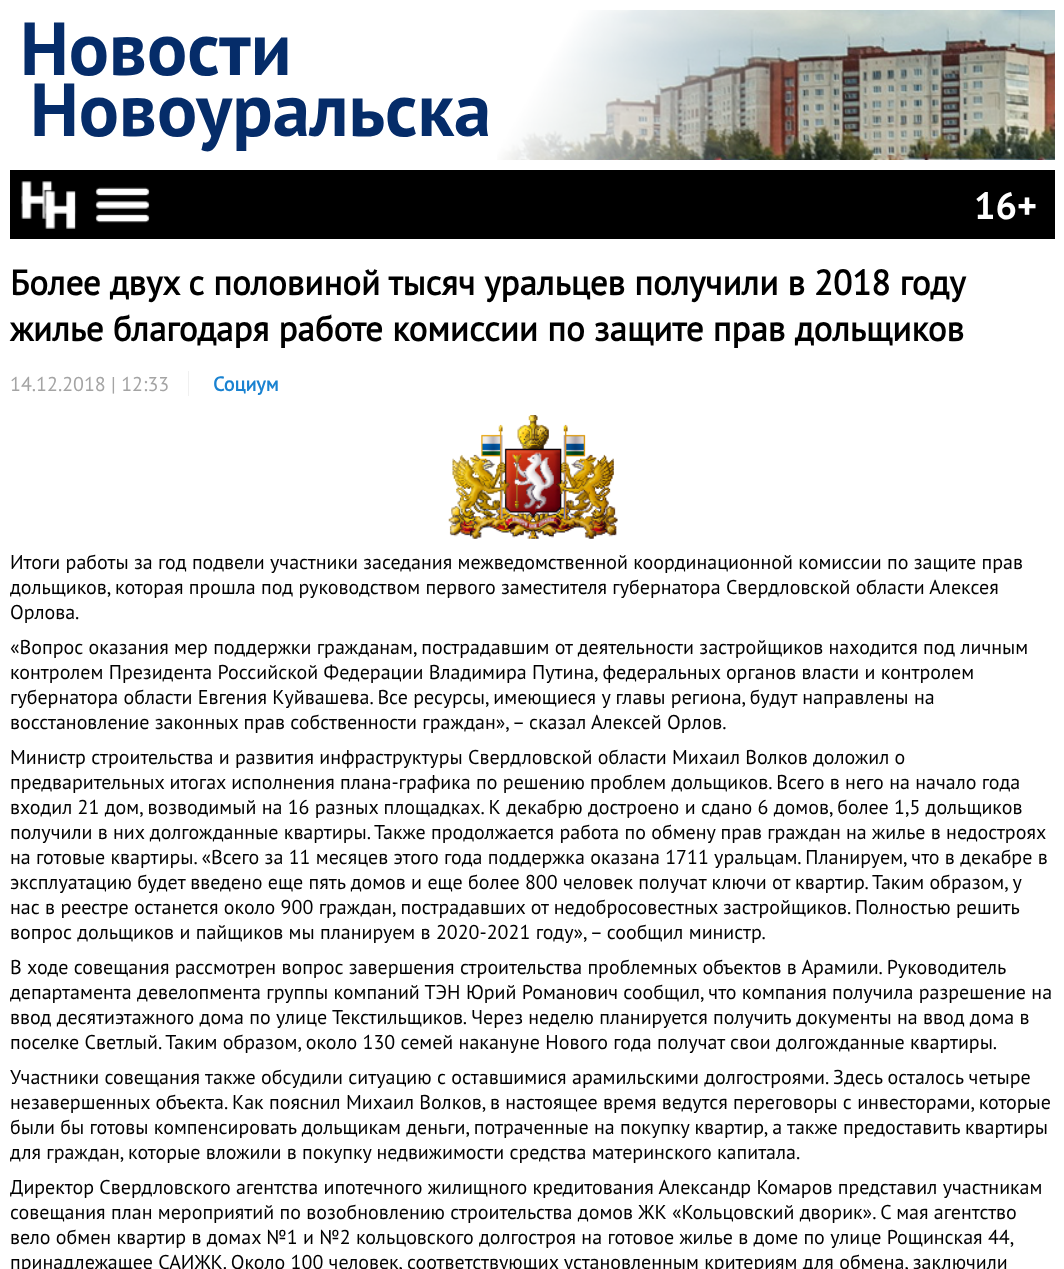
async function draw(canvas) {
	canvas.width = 1064;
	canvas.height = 1269;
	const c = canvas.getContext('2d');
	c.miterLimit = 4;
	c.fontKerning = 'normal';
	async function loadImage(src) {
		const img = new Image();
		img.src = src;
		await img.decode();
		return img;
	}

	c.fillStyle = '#fff';
	c.fillRect(0, 0, 1064, 1269);
	c.font = 'bold 75px PT Sans';
	c.fillStyle = '#052c69';
	c.fillText('Новости', 20, 75);
	c.fillText('Новоуральска', 30, 136);
	c.drawImage(await loadImage('img1.png'), 497, 10, 558, 150);
	c.fillStyle = '#000';
	c.fillRect(10, 170, 1045, 69);
	c.drawImage(await loadImage('img2.png'), 21, 181, 56, 48);
	c.drawImage(await loadImage('img3.png'), 95, 187, 55, 36);
	c.font = 'bold 38px PT Sans';
	c.fillStyle = '#fff';
	c.fillText('16+', 974, 219);
	c.wordSpacing = '-0.25px';
	c.font = 'bold 35px "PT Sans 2"';
	c.fillStyle = '#000';
	c.fillText('Более двух с половиной тысяч уральцев получили в 2018 году', 10, 295);
	c.wordSpacing = '0px';
	c.fillText('жилье благодаря работе комиссии по защите прав дольщиков', 10, 341);
	c.font = '20px PT Sans';
	c.fillStyle = '#a4a4a4';
	c.fillText('14.12.2018 | 12:33', 10, 391);
	c.fillStyle = '#f0f0f0';
	c.fillRect(188, 371, 1, 25);
	c.font = 'bold 20px "PT Sans 2"';
	c.fillStyle = '#1982d1';
	c.fillText('Социум', 213, 391);
	c.drawImage(await loadImage('img4.png'), 448, 415, 170, 124);
	c.font = '20px PT Sans';
	c.fillStyle = '#000';
	for (const [text, x, y] of [
		['Итоги работы за год подвели участники заседания межведомственной координационной комиссии по защите прав', 10, 569],
		['дольщиков, которая прошла под руководством первого заместителя губернатора Свердловской области Алексея', 10, 594],
		['Орлова.', 10, 619],
		['«Вопрос оказания мер поддержки гражданам, пострадавшим от деятельности застройщиков находится под личным', 10, 654],
		['контролем Президента Российской Федерации Владимира Путина, федеральных органов власти и контролем', 10, 679],
		['губернатора области Евгения Куйвашева. Все ресурсы, имеющиеся у главы региона, будут направлены на', 10, 704],
		['восстановление законных прав собственности граждан», – сказал Алексей Орлов.', 10, 729],
		['Министр строительства и развития инфраструктуры Свердловской области Михаил Волков доложил о', 10, 764],
		['предварительных итогах исполнения плана-графика по решению проблем дольщиков. Всего в него на начало года', 10, 789],
		['входил 21 дом, возводимый на 16 разных площадках. К декабрю достроено и сдано 6 домов, более 1,5 дольщиков', 10, 814],
		['получили в них долгожданные квартиры. Также продолжается работа по обмену прав граждан на жилье в недостроях', 10, 839],
		['на готовые квартиры. «Всего за 11 месяцев этого года поддержка оказана 1711 уральцам. Планируем, что в декабре в', 10, 864],
		['эксплуатацию будет введено еще пять домов и еще более 800 человек получат ключи от квартир. Таким образом, у', 10, 889],
		['нас в реестре останется около 900 граждан, пострадавших от недобросовестных застройщиков. Полностью решить', 10, 914],
		['вопрос дольщиков и пайщиков мы планируем в 2020-2021 году», – сообщил министр.', 10, 939],
		['В ходе совещания рассмотрен вопрос завершения строительства проблемных объектов в Арамили. Руководитель', 10, 974],
		['департамента девелопмента группы компаний ТЭН Юрий Романович сообщил, что компания получила разрешение на', 10, 999],
		['ввод десятиэтажного дома по улице Текстильщиков. Через неделю планируется получить документы на ввод дома в', 10, 1024],
		['поселке Светлый. Таким образом, около 130 семей накануне Нового года получат свои долгожданные квартиры.', 10, 1049],
		['Участники совещания также обсудили ситуацию с оставшимися арамильскими долгостроями. Здесь осталось четыре', 10, 1084],
		['незавершенных объекта. Как пояснил Михаил Волков, в настоящее время ведутся переговоры с инвесторами, которые', 10, 1109],
		['были бы готовы компенсировать дольщикам деньги, потраченные на покупку квартир, а также предоставить квартиры', 10, 1134],
		['для граждан, которые вложили в покупку недвижимости средства материнского капитала.', 10, 1159],
		['Директор Свердловского агентства ипотечного жилищного кредитования Александр Комаров представил участникам', 10, 1194],
		['совещания план мероприятий по возобновлению строительства домов ЖК «Кольцовский дворик». С мая агентство', 10, 1219],
		['вело обмен квартир в домах №1 и №2 кольцовского долгостроя на готовое жилье в доме по улице Рощинская 44,', 10, 1244],
		['принадлежащее САИЖК. Около 100 человек, соответствующих установленным критериям для обмена, заключили', 10, 1269],
	]) {
		c.fillText(text, x, y);
	}
}

draw(document.querySelector('canvas'));
